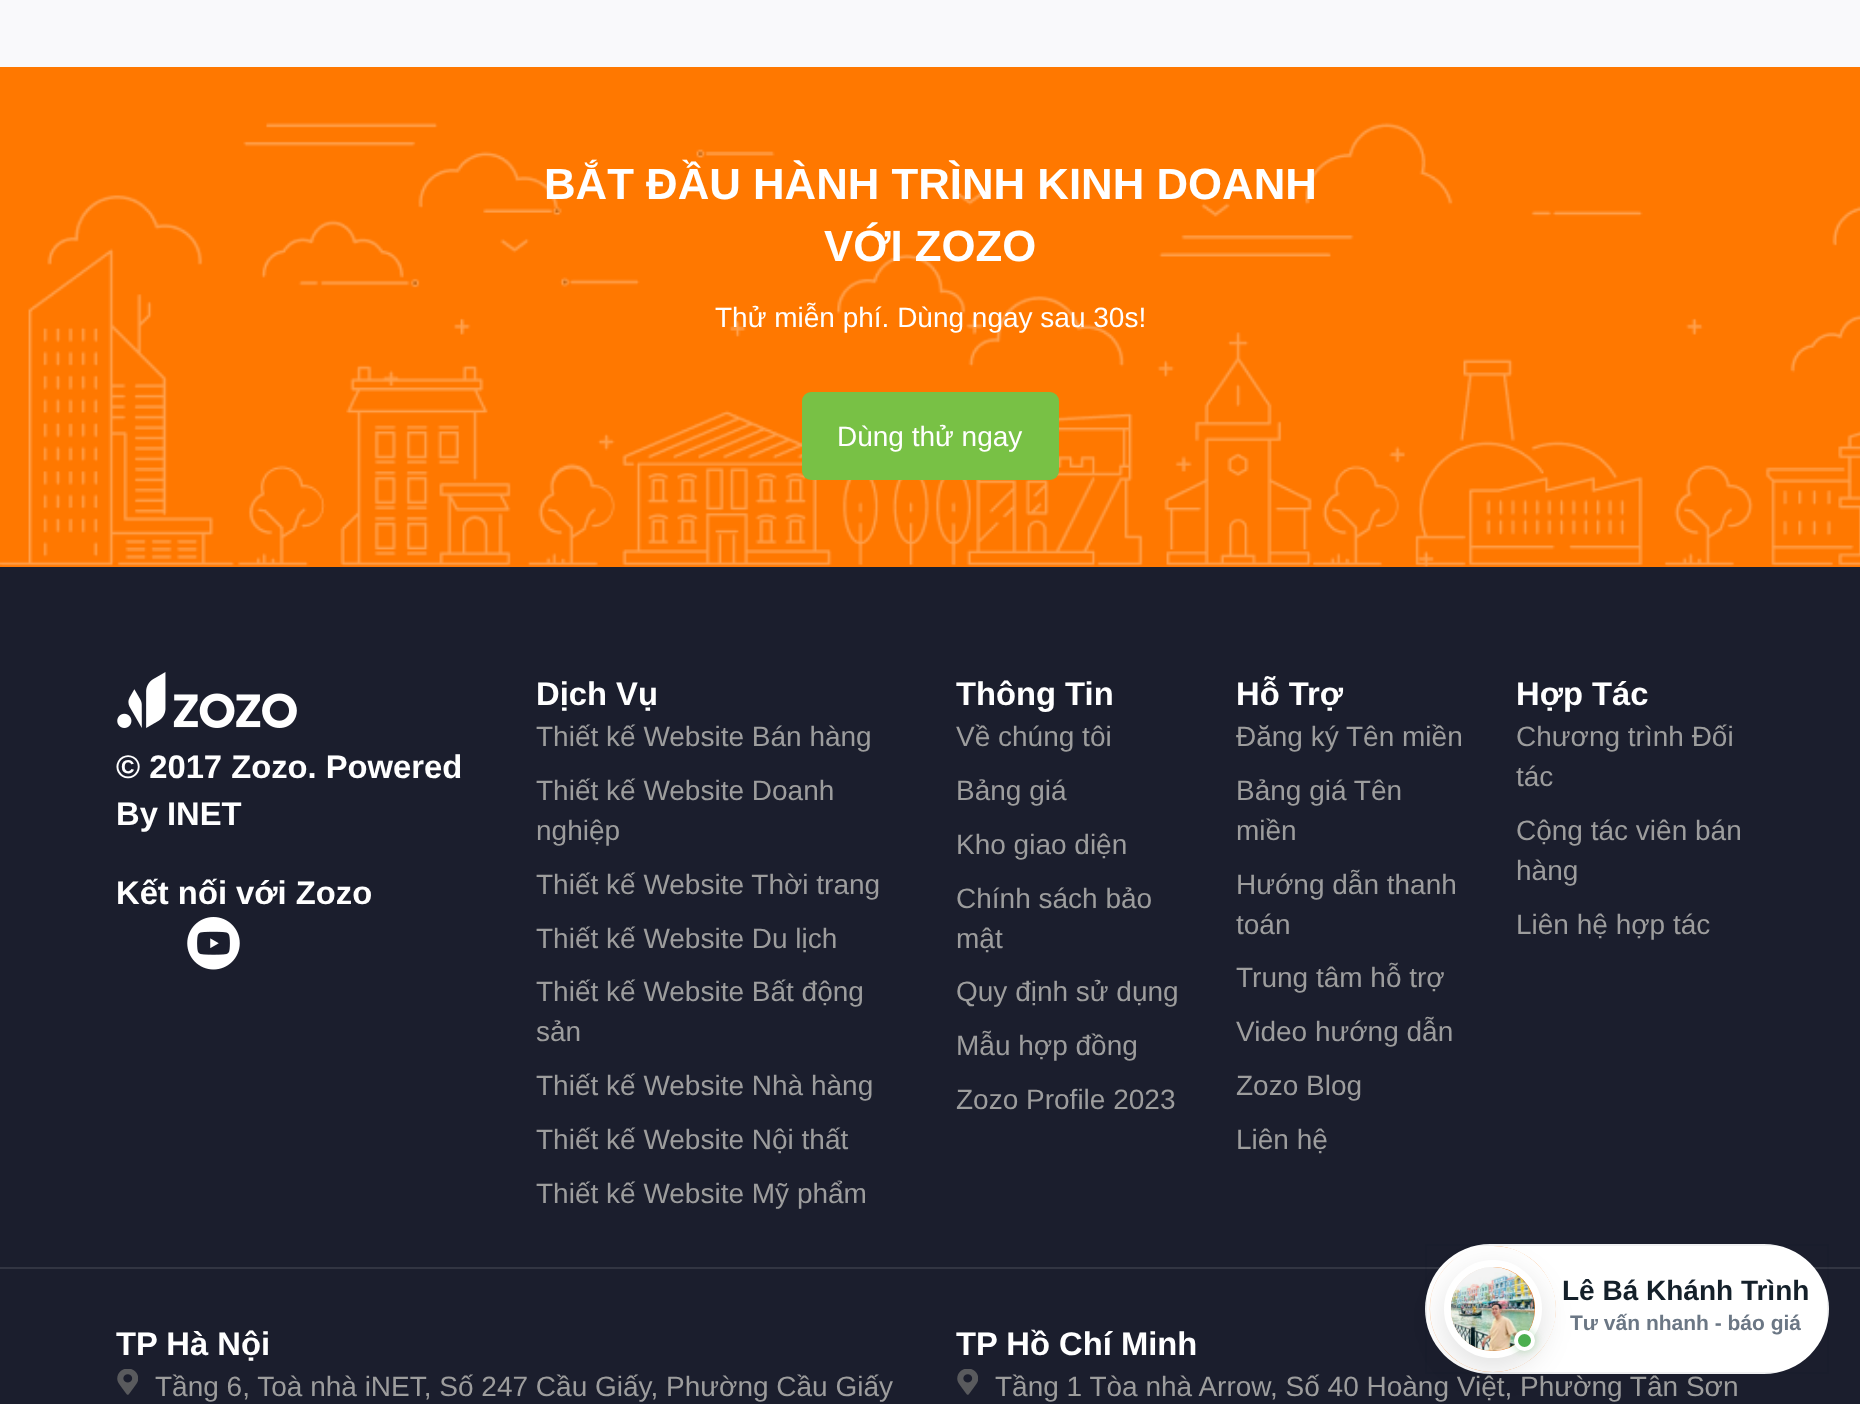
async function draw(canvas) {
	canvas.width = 1860;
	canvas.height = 1404;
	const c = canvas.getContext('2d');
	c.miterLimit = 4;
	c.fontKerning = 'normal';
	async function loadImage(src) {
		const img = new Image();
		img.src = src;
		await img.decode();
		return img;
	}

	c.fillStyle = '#f9f9fb';
	c.fillRect(0, 0, 1860, 1404);
	c.fillStyle = '#ff7800';
	c.fillRect(0, 67, 1860, 500);
	c.drawImage(await loadImage('img1.png'), 0, 122, 1860, 445);
	c.font = 'bold 43.75px Liberation Sans';
	c.fillStyle = '#fff';
	c.fillText('BẮT ĐẦU HÀNH TRÌNH KINH DOANH', 544, 199);
	c.fillText('VỚI ZOZO', 824, 261);
	c.font = '28px Liberation Sans';
	c.fillText('Thử miễn phí. Dùng ngay sau 30s!', 715, 327);
	c.fillStyle = '#78c145';
	c.beginPath();
	c.roundRect(802, 392, 257, 88, 9);
	c.fill();
	c.fillStyle = '#fff';
	c.fillText('Dùng thử ngay', 837, 446);
	c.fillStyle = '#1b1e2d';
	c.fillRect(0, 567, 1860, 837);
	c.fillStyle = '#323542';
	c.fillRect(0, 1267, 1860, 2);
	c.drawImage(await loadImage('img2.png'), 117, 672, 180, 56);
	c.font = 'bold 32.75px Liberation Sans';
	c.fillStyle = '#fff';
	for (const [text, x, y] of [
		['© 2017 Zozo. Powered', 116, 778],
		['By INET', 116, 825],
		['Kết nối với Zozo', 116, 904],
	]) {
		c.fillText(text, x, y);
	}
	c.drawImage(await loadImage('img3.png'), 187, 917, 53, 53);
	c.fillText('Dịch Vụ', 536, 705);
	c.font = '28px Liberation Sans';
	c.fillStyle = '#9d9d9d';
	for (const [text, x, y] of [
		['Thiết kế Website Bán hàng', 536, 746],
		['Thiết kế Website Doanh', 536, 800],
		['nghiệp', 536, 840],
		['Thiết kế Website Thời trang', 536, 894],
		['Thiết kế Website Du lịch', 536, 948],
		['Thiết kế Website Bất động', 536, 1001],
		['sản', 536, 1041],
		['Thiết kế Website Nhà hàng', 536, 1095],
		['Thiết kế Website Nội thất', 536, 1149],
		['Thiết kế Website Mỹ phẩm', 536, 1203],
	]) {
		c.fillText(text, x, y);
	}
	c.font = 'bold 32.75px Liberation Sans';
	c.fillStyle = '#fff';
	c.fillText('Thông Tin', 956, 705);
	c.font = '28px Liberation Sans';
	c.fillStyle = '#9d9d9d';
	for (const [text, x, y] of [
		['Về chúng tôi', 956, 746],
		['Bảng giá', 956, 800],
		['Kho giao diện', 956, 854],
		['Chính sách bảo', 956, 908],
		['mật', 956, 948],
		['Quy định sử dụng', 956, 1001],
		['Mẫu hợp đồng', 956, 1055],
		['Zozo Profile 2023', 956, 1109],
	]) {
		c.fillText(text, x, y);
	}
	c.font = 'bold 32.75px Liberation Sans';
	c.fillStyle = '#fff';
	c.fillText('Hỗ Trợ', 1236, 705);
	c.font = '28px Liberation Sans';
	c.fillStyle = '#9d9d9d';
	for (const [text, x, y] of [
		['Đăng ký Tên miền', 1236, 746],
		['Bảng giá Tên', 1236, 800],
		['miền', 1236, 840],
		['Hướng dẫn thanh', 1236, 894],
		['toán', 1236, 934],
		['Trung tâm hỗ trợ', 1236, 987],
		['Video hướng dẫn', 1236, 1041],
		['Zozo Blog', 1236, 1095],
		['Liên hệ', 1236, 1149],
	]) {
		c.fillText(text, x, y);
	}
	c.font = 'bold 32.75px Liberation Sans';
	c.fillStyle = '#fff';
	c.fillText('Hợp Tác', 1516, 705);
	c.font = '28px Liberation Sans';
	c.fillStyle = '#9d9d9d';
	for (const [text, x, y] of [
		['Chương trình Đối', 1516, 746],
		['tác', 1516, 786],
		['Cộng tác viên bán', 1516, 840],
		['hàng', 1516, 880],
		['Liên hệ hợp tác', 1516, 934],
	]) {
		c.fillText(text, x, y);
	}
	c.font = 'bold 32.75px Liberation Sans';
	c.fillStyle = '#fff';
	c.fillText('TP Hà Nội', 116, 1355);
	c.drawImage(await loadImage('img4.png'), 117, 1369, 21, 26);
	c.font = '28px Liberation Sans';
	c.fillStyle = '#9d9d9d';
	c.fillText('Tầng 6, Toà nhà iNET, Số 247 Cầu Giấy, Phường Cầu Giấy', 155, 1396);
	c.font = 'bold 32.75px Liberation Sans';
	c.fillStyle = '#fff';
	c.fillText('TP Hồ Chí Minh', 956, 1355);
	c.drawImage(await loadImage('img4.png'), 957, 1369, 21, 26);
	c.font = '28px Liberation Sans';
	c.fillStyle = '#9d9d9d';
	c.fillText('Tầng 1 Tòa nhà Arrow, Số 40 Hoàng Việt, Phường Tân Sơn', 995, 1396);
	c.fillStyle = '#fff';
	c.beginPath();
	c.roundRect(1425, 1244, 404, 130, 65);
	c.fill();
	c.strokeStyle = '#0514230f';
	c.lineWidth = 2;
	c.strokeRect(1426, 1245, 402, 128);
	c.drawImage(await loadImage('img6.png'), 1429, 1246, 127, 126);
	c.beginPath();
	c.arc(1493, 1309, 54, 0, 2 * Math.PI);
	c.strokeStyle = '#fff';
	c.lineWidth = 18;
	c.stroke();
	c.fillStyle = '#0000001f';
	c.filter = 'blur(16px)';
	c.beginPath();
	c.roundRect(1444, 1271, 98, 98, 49);
	c.fill();
	c.filter = 'none';
	c.beginPath();
	c.arc(1493, 1309, 45.5, 0, 2 * Math.PI);
	c.lineWidth = 7;
	c.stroke();
	c.drawImage(await loadImage('img5.png'), 1450, 1267, 85, 84);
	c.fillStyle = '#4caf5066';
	c.filter = 'blur(5px)';
	c.beginPath();
	c.roundRect(1514, 1330, 21, 21, 10.5);
	c.fill();
	c.filter = 'none';
	c.fillStyle = '#4caf50';
	c.beginPath();
	c.arc(1524.5, 1340.5, 8.5, 0, 2 * Math.PI);
	c.fill();
	c.lineWidth = 4;
	c.stroke();
	c.font = 'bold 28px Liberation Sans';
	c.fillStyle = '#14202a';
	c.fillText('Lê Bá Khánh Trình', 1562, 1300);
	c.font = 'bold 21px Liberation Sans';
	c.fillStyle = '#6b7785';
	c.fillText('Tư vấn nhanh - báo giá', 1570, 1330);
}

draw(document.querySelector('canvas'));
